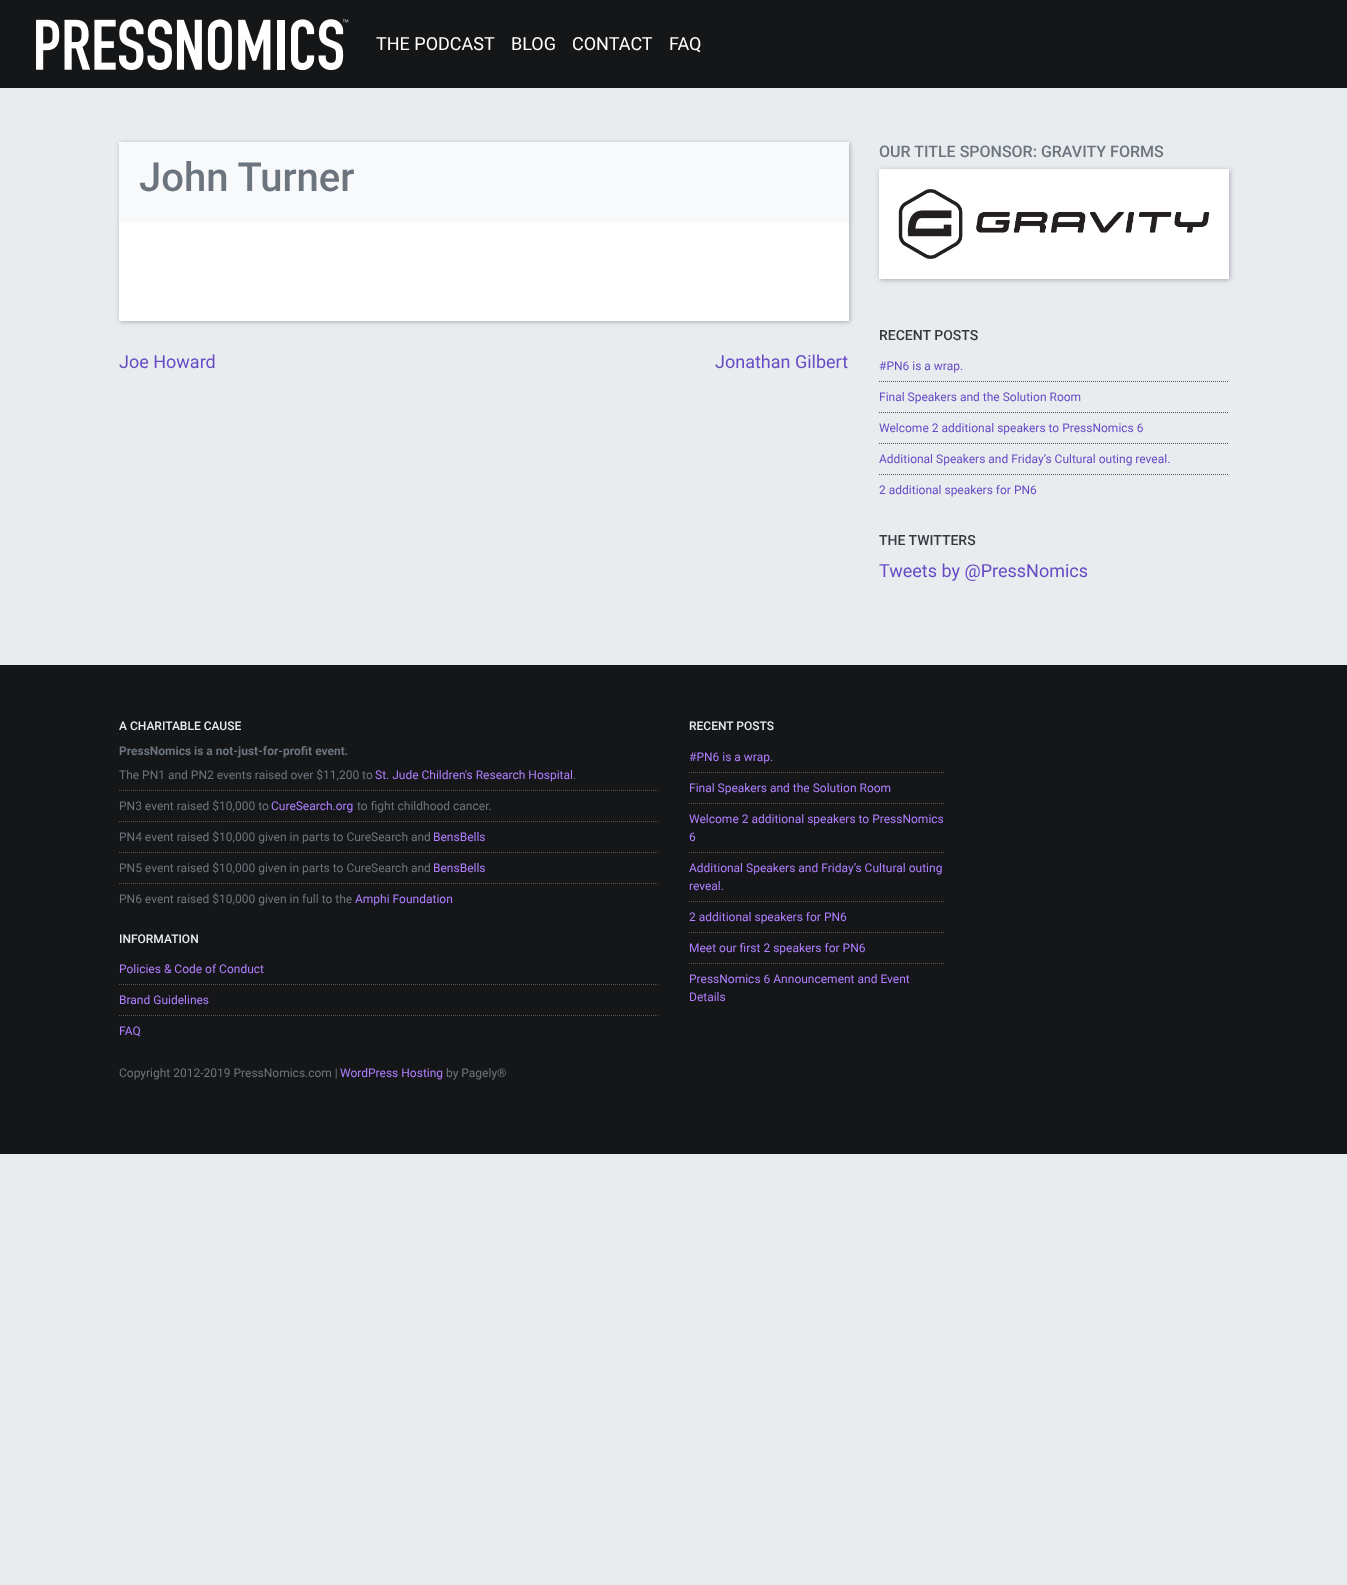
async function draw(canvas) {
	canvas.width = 1347;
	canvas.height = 1585;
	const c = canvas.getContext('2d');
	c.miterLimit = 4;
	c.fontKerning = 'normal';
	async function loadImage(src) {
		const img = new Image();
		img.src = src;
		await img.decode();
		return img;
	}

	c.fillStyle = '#e9ecef';
	c.fillRect(0, 0, 1347, 1585);
	c.fillStyle = '#141618';
	c.fillRect(0, 0, 1347, 88);
	c.drawImage(await loadImage('img1.png'), 36, 19, 313, 52);
	c.font = '18px Roboto';
	c.fillStyle = '#fff';
	for (const [text, x, y] of [
		['THE PODCAST', 376, 50],
		['BLOG', 511, 50],
		['CONTACT', 572, 50],
		['FAQ', 669, 50],
	]) {
		c.fillText(text, x, y);
	}
	c.fillStyle = '#2b2b4757';
	c.filter = 'blur(2.5px)';
	c.beginPath();
	c.rect(120, 143, 730, 179);
	c.fill();
	c.filter = 'none';
	c.fillStyle = '#fff';
	c.fillRect(119, 142, 730, 179);
	c.fillStyle = '#f8f9fa';
	c.beginPath();
	c.roundRect(119, 142, 730, 80, [3, 3, 0, 0]);
	c.fill();
	c.font = '500 40px Roboto';
	c.fillStyle = '#6c757d';
	c.fillText('John Turner', 139, 191);
	c.font = '18px Roboto';
	c.fillStyle = '#674bc5';
	c.fillText('Joe Howard', 119, 368);
	c.fillText('Jonathan Gilbert', 715, 368);
	c.font = '500 16px Roboto';
	c.fillStyle = '#6c757d';
	c.fillText('OUR TITLE SPONSOR: GRAVITY FORMS', 879, 157);
	c.fillStyle = '#2b2b4757';
	c.filter = 'blur(2.5px)';
	c.beginPath();
	c.rect(880, 170, 350, 110);
	c.fill();
	c.filter = 'none';
	c.fillStyle = '#fff';
	c.fillRect(879, 169, 350, 110);
	c.drawImage(await loadImage('img2.png'), 898, 189, 312, 70);
	c.font = '500 14px Roboto';
	c.fillStyle = '#343a40';
	c.fillText('RECENT POSTS', 879, 340);
	c.beginPath();
	c.moveTo(879, 381.5);
	c.lineTo(1229, 381.5);
	c.strokeStyle = '#555';
	c.setLineDash([1, 1]);
	c.stroke();
	c.font = '12px Roboto';
	c.fillStyle = '#674bc5';
	c.fillText('#PN6 is a wrap.', 879, 370);
	c.beginPath();
	c.moveTo(879, 412.5);
	c.lineTo(1229, 412.5);
	c.stroke();
	c.fillText('Final Speakers and the Solution Room', 879, 401);
	c.beginPath();
	c.moveTo(879, 443.5);
	c.lineTo(1229, 443.5);
	c.stroke();
	c.fillText('Welcome 2 additional speakers to PressNomics 6', 879, 432);
	c.beginPath();
	c.moveTo(879, 474.5);
	c.lineTo(1229, 474.5);
	c.stroke();
	c.fillText('Additional Speakers and Friday’s Cultural outing reveal.', 879, 463);
	c.fillText('2 additional speakers for PN6', 879, 494);
	c.font = '500 14px Roboto';
	c.fillStyle = '#343a40';
	c.fillText('THE TWITTERS', 879, 545);
	c.font = '18px Roboto';
	c.fillStyle = '#674bc5';
	c.fillText('Tweets by @PressNomics', 879, 577);
	c.fillStyle = '#141618';
	c.fillRect(0, 665, 1347, 489);
	c.font = '500 12px Roboto';
	c.fillStyle = '#e9ecef';
	c.fillText('A CHARITABLE CAUSE', 119, 730);
	c.font = 'bold 12px Roboto';
	c.fillStyle = '#6c757d';
	c.fillText('PressNomics is a not-just-for-profit event.', 119, 755);
	c.beginPath();
	c.moveTo(119, 790.5);
	c.lineTo(659, 790.5);
	c.stroke();
	c.font = '12px Roboto';
	c.fillText('The PN1 and PN2 events raised over $11,200 to', 119, 779);
	c.fillStyle = '#b17fff';
	c.fillText('St. Jude Children\'s Research Hospital', 375, 779);
	c.fillStyle = '#6c757d';
	c.fillText('.', 573, 779);
	c.beginPath();
	c.moveTo(119, 821.5);
	c.lineTo(659, 821.5);
	c.stroke();
	c.fillText('PN3 event raised $10,000 to', 119, 810);
	c.fillStyle = '#b17fff';
	c.fillText('CureSearch.org', 271, 810);
	c.fillStyle = '#6c757d';
	c.fillText('to fight childhood cancer.', 357, 810);
	c.beginPath();
	c.moveTo(119, 852.5);
	c.lineTo(659, 852.5);
	c.stroke();
	c.fillText('PN4 event raised $10,000 given in parts to CureSearch and', 119, 841);
	c.fillStyle = '#b17fff';
	c.fillText('BensBells', 433, 841);
	c.beginPath();
	c.moveTo(119, 883.5);
	c.lineTo(659, 883.5);
	c.stroke();
	c.fillStyle = '#6c757d';
	c.fillText('PN5 event raised $10,000 given in parts to CureSearch and', 119, 872);
	c.fillStyle = '#b17fff';
	c.fillText('BensBells', 433, 872);
	c.fillStyle = '#6c757d';
	c.fillText('PN6 event raised $10,000 given in full to the', 119, 903);
	c.fillStyle = '#b17fff';
	c.fillText('Amphi Foundation', 355, 903);
	c.font = '500 12px Roboto';
	c.fillStyle = '#e9ecef';
	c.fillText('INFORMATION', 119, 943);
	c.beginPath();
	c.moveTo(119, 984.5);
	c.lineTo(659, 984.5);
	c.stroke();
	c.font = '12px Roboto';
	c.fillStyle = '#b17fff';
	c.fillText('Policies & Code of Conduct', 119, 973);
	c.beginPath();
	c.moveTo(119, 1015.5);
	c.lineTo(659, 1015.5);
	c.stroke();
	c.fillText('Brand Guidelines', 119, 1004);
	c.fillText('FAQ', 119, 1035);
	c.fillStyle = '#6c757d';
	c.fillText('Copyright 2012-2019 PressNomics.com |', 119, 1077);
	c.fillStyle = '#b17fff';
	c.fillText('WordPress Hosting', 340, 1077);
	c.fillStyle = '#6c757d';
	c.fillText('by Pagely®', 446, 1077);
	c.font = '500 12px Roboto';
	c.fillStyle = '#e9ecef';
	c.fillText('RECENT POSTS', 689, 730);
	c.beginPath();
	c.moveTo(689, 772.5);
	c.lineTo(944, 772.5);
	c.stroke();
	c.font = '12px Roboto';
	c.fillStyle = '#b17fff';
	c.fillText('#PN6 is a wrap.', 689, 761);
	c.beginPath();
	c.moveTo(689, 803.5);
	c.lineTo(944, 803.5);
	c.stroke();
	c.fillText('Final Speakers and the Solution Room', 689, 792);
	c.beginPath();
	c.moveTo(689, 852.5);
	c.lineTo(944, 852.5);
	c.stroke();
	c.fillText('Welcome 2 additional speakers to PressNomics', 689, 823);
	c.fillText('6', 689, 841);
	c.beginPath();
	c.moveTo(689, 901.5);
	c.lineTo(944, 901.5);
	c.stroke();
	c.fillText('Additional Speakers and Friday’s Cultural outing', 689, 872);
	c.fillText('reveal.', 689, 890);
	c.beginPath();
	c.moveTo(689, 932.5);
	c.lineTo(944, 932.5);
	c.stroke();
	c.fillText('2 additional speakers for PN6', 689, 921);
	c.beginPath();
	c.moveTo(689, 963.5);
	c.lineTo(944, 963.5);
	c.stroke();
	for (const [text, x, y] of [
		['Meet our first 2 speakers for PN6', 689, 952],
		['PressNomics 6 Announcement and Event', 689, 983],
		['Details', 689, 1001],
	]) {
		c.fillText(text, x, y);
	}
}

draw(document.querySelector('canvas'));
